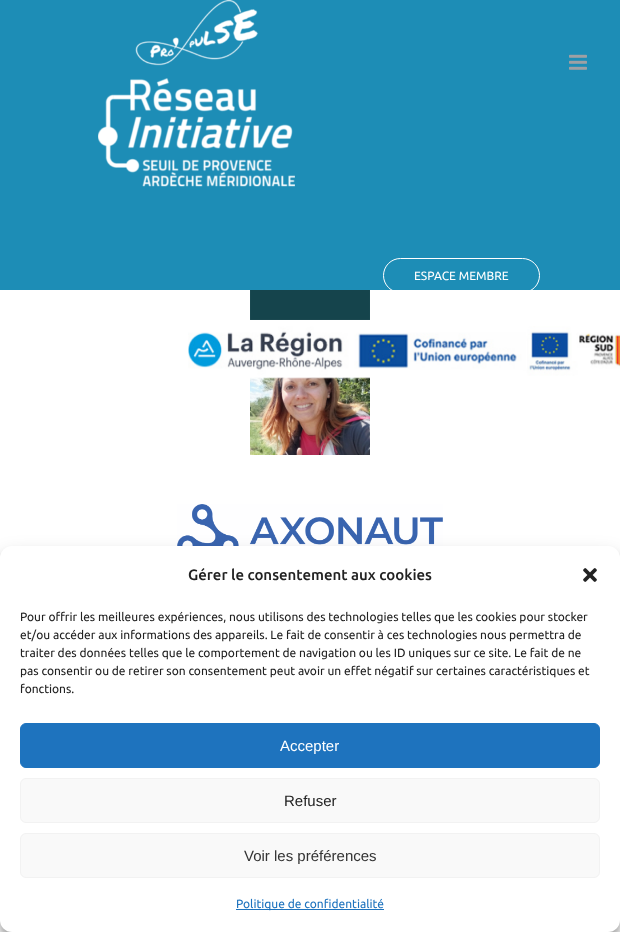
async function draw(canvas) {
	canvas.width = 620;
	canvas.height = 932;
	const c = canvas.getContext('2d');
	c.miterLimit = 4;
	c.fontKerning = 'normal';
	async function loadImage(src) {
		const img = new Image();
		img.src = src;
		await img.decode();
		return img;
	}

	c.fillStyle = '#fff';
	c.fillRect(0, 0, 620, 932);
	c.fillStyle = '#1d8db6';
	c.fillRect(0, 0, 620, 290);
	c.drawImage(await loadImage('img1.png'), 98, 0, 197, 187);
	c.drawImage(await loadImage('img2.png'), 569, 54, 18, 16);
	c.beginPath();
	c.roundRect(383.5, 258.5, 156, 34, 17);
	c.strokeStyle = '#fff';
	c.stroke();
	c.font = '12px Ubuntu';
	c.fillStyle = '#fff';
	c.fillText('ESPACE MEMBRE', 414, 280);
	c.drawImage(await loadImage('img5.png'), 250, 377, 120, 78);
	c.drawImage(await loadImage('img3.png'), 188, 326, 432, 53);
	c.drawImage(await loadImage('img4.png'), 250, 290, 120, 30);
	c.drawImage(await loadImage('img6.png'), 177, 504, 266, 42);
	c.fillStyle = '#0000003b';
	c.filter = 'blur(3px)';
	c.beginPath();
	c.roundRect(0, 552, 620, 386, 12);
	c.fill();
	c.filter = 'none';
	c.fillStyle = '#00000030';
	c.filter = 'blur(10px)';
	c.beginPath();
	c.roundRect(0, 556, 620, 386, 12);
	c.fill();
	c.filter = 'none';
	c.fillStyle = '#fff';
	c.beginPath();
	c.roundRect(0, 546, 620, 386, 12);
	c.fill();
	c.font = '500 15px Ubuntu';
	c.fillStyle = '#222';
	c.fillText('Gérer le consentement aux cookies', 188, 580);
	c.drawImage(await loadImage('img7.png'), 583, 568, 14, 14);
	c.font = '12px Ubuntu';
	for (const [text, x, y] of [
		['Pour offrir les meilleures expériences, nous utilisons des technologies telles que les cookies pour stocker', 20, 621],
		['et/ou accéder aux informations des appareils. Le fait de consentir à ces technologies nous permettra de', 20, 639],
		['traiter des données telles que le comportement de navigation ou les ID uniques sur ce site. Le fait de ne', 20, 657],
		['pas consentir ou de retirer son consentement peut avoir un effet négatif sur certaines caractéristiques et', 20, 675],
		['fonctions.', 20, 693],
	]) {
		c.fillText(text, x, y);
	}
	c.fillStyle = '#1e73be';
	c.beginPath();
	c.roundRect(20.5, 723.5, 579, 44, 5.5);
	c.fill();
	c.strokeStyle = '#1e73be';
	c.stroke();
	c.font = '15px Liberation Sans';
	c.fillStyle = '#fff';
	c.fillText('Accepter', 280, 751);
	c.fillStyle = '#f9f9f9';
	c.beginPath();
	c.roundRect(20.5, 778.5, 579, 44, 5.5);
	c.fill();
	c.strokeStyle = '#f2f2f2';
	c.stroke();
	c.fillStyle = '#222';
	c.fillText('Refuser', 284, 806);
	c.fillStyle = '#f9f9f9';
	c.beginPath();
	c.roundRect(20.5, 833.5, 579, 44, 5.5);
	c.fill();
	c.stroke();
	c.fillStyle = '#333';
	c.fillText('Voir les préférences', 244, 861);
	c.fillStyle = '#1e73be';
	c.fillRect(236, 909, 148, 1);
	c.font = '12px Ubuntu';
	c.fillText('Politique de confidentialité', 236, 908);
}

draw(document.querySelector('canvas'));
